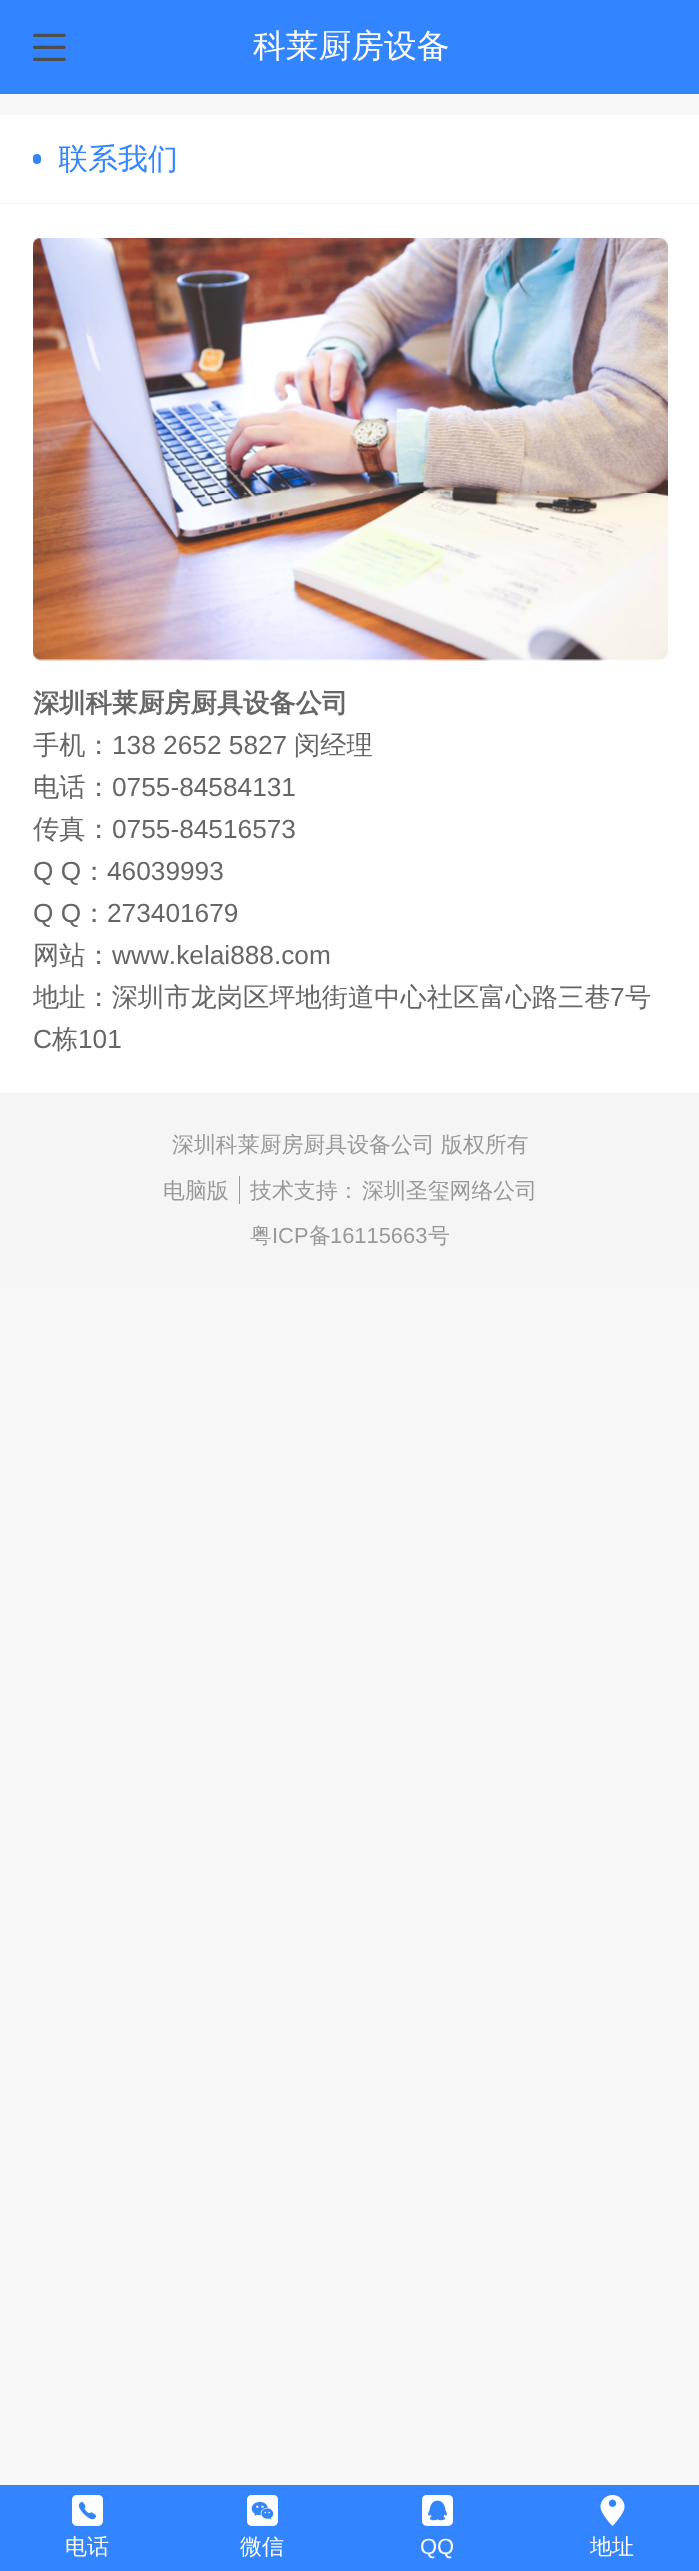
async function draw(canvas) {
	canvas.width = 699;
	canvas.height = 2571;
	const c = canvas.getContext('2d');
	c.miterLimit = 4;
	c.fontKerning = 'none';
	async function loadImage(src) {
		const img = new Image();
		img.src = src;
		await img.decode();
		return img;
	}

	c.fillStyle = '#f8f8f8';
	c.fillRect(0, 0, 699, 2571);
	c.fillStyle = '#3285ff';
	c.fillRect(0, 0, 699, 94);
	c.font = '32.75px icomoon';
	c.fillStyle = '#4d4d4d';
	c.fillText('򰌲', 33, 61);
	c.font = '500 32.75px WenQuanYi Zen Hei';
	c.fillStyle = '#fff';
	c.fillText('科莱厨房设备', 253, 57);
	c.fillRect(0, 115, 699, 88);
	c.fillStyle = '#f3f3f3';
	c.fillRect(0, 203, 699, 1);
	c.fillStyle = '#3285ff';
	c.beginPath();
	c.roundRect(33, 154, 8, 10, 4);
	c.fill();
	c.save();
	c.beginPath();
	c.rect(59, 139, 120, 40);
	c.clip();
	c.font = '500 30px WenQuanYi Zen Hei';
	c.fillText('联系我们', 58, 169);
	c.restore();
	c.fillStyle = '#fff';
	c.fillRect(0, 204, 699, 889);
	c.drawImage(await loadImage('img1.png'), 33, 238, 635, 423);
	c.font = 'bold 26.25px WenQuanYi Zen Hei';
	c.fillStyle = '#666';
	c.fillText('深圳科莱厨房厨具设备公司', 33, 712);
	c.font = '500 26.25px WenQuanYi Zen Hei';
	c.fillText('手机：', 33, 754);
	c.font = '26.25px Liberation Sans';
	c.fillText('138 2652 5827', 112, 754);
	c.font = '500 26.25px WenQuanYi Zen Hei';
	c.fillText('闵经理', 294, 754);
	c.fillText('电话：', 33, 796);
	c.font = '26.25px Liberation Sans';
	c.fillText('0755-84584131', 112, 796);
	c.font = '500 26.25px WenQuanYi Zen Hei';
	c.fillText('传真：', 33, 838);
	c.font = '26.25px Liberation Sans';
	c.fillText('0755-84516573', 112, 838);
	c.fillText('Q Q', 33, 880);
	c.font = '500 26.25px WenQuanYi Zen Hei';
	c.fillText('：', 81, 880);
	c.font = '26.25px Liberation Sans';
	c.fillText('46039993', 107, 880);
	c.fillText('Q Q', 33, 922);
	c.font = '500 26.25px WenQuanYi Zen Hei';
	c.fillText('：', 81, 922);
	c.font = '26.25px Liberation Sans';
	c.fillText('273401679', 107, 922);
	c.font = '500 26.25px WenQuanYi Zen Hei';
	c.fillText('网站：', 33, 964);
	c.font = '26.25px Liberation Sans';
	c.fillText('www.kelai888.com', 112, 964);
	c.font = '500 26.25px WenQuanYi Zen Hei';
	c.fillText('地址：深圳市龙岗区坪地街道中心社区富心路三巷', 33, 1006);
	c.font = '26.25px Liberation Sans';
	c.fillText('7', 610, 1006);
	c.font = '500 26.25px WenQuanYi Zen Hei';
	c.fillText('号', 625, 1006);
	c.font = '26.25px Liberation Sans';
	c.fillText('C', 33, 1048);
	c.font = '500 26.25px WenQuanYi Zen Hei';
	c.fillText('栋', 52, 1048);
	c.font = '26.25px Liberation Sans';
	c.fillText('101', 78, 1048);
	c.fillStyle = '#f5f5f5';
	c.fillRect(0, 1093, 699, 195);
	c.font = '500 21.9px WenQuanYi Zen Hei';
	c.fillStyle = '#999';
	for (const [text, x, y] of [
		['深圳科莱厨房厨具设备公司', 172, 1152],
		['版权所有', 441, 1152],
		['电脑版', 163, 1198],
	]) {
		c.fillText(text, x, y);
	}
	c.fillRect(239, 1176, 1, 28);
	for (const [text, x, y] of [
		['技术支持：', 250, 1198],
		['深圳圣玺网络公司', 362, 1198],
		['粤', 250, 1243],
	]) {
		c.fillText(text, x, y);
	}
	c.font = '21.9px Liberation Sans';
	c.fillText('ICP', 272, 1243);
	c.font = '500 21.9px WenQuanYi Zen Hei';
	c.fillText('备', 309, 1243);
	c.font = '21.9px Liberation Sans';
	c.fillText('16115663', 330, 1243);
	c.font = '500 21.9px WenQuanYi Zen Hei';
	c.fillText('号', 428, 1243);
	c.fillStyle = '#3285ff';
	c.fillRect(0, 2485, 699, 86);
	c.fillStyle = '#f4f4f4';
	c.fillRect(0, 2484, 699, 1);
	c.font = '31px icomoon';
	c.fillStyle = '#fff';
	c.fillText('򠤧', 72, 2524);
	c.font = '500 22px WenQuanYi Zen Hei';
	c.fillText('电话', 65, 2554);
	c.font = '31px icomoon';
	c.fillText('򠤰', 247, 2524);
	c.font = '500 22px WenQuanYi Zen Hei';
	c.fillText('微信', 240, 2554);
	c.font = '31px icomoon';
	c.fillText('򠤨', 422, 2524);
	c.font = '22px Liberation Sans';
	c.fillText('QQ', 420, 2554);
	c.font = '31px icomoon';
	c.fillText('򡁷', 597, 2524);
	c.font = '500 22px WenQuanYi Zen Hei';
	c.fillText('地址', 590, 2554);
}

draw(document.querySelector('canvas'));
